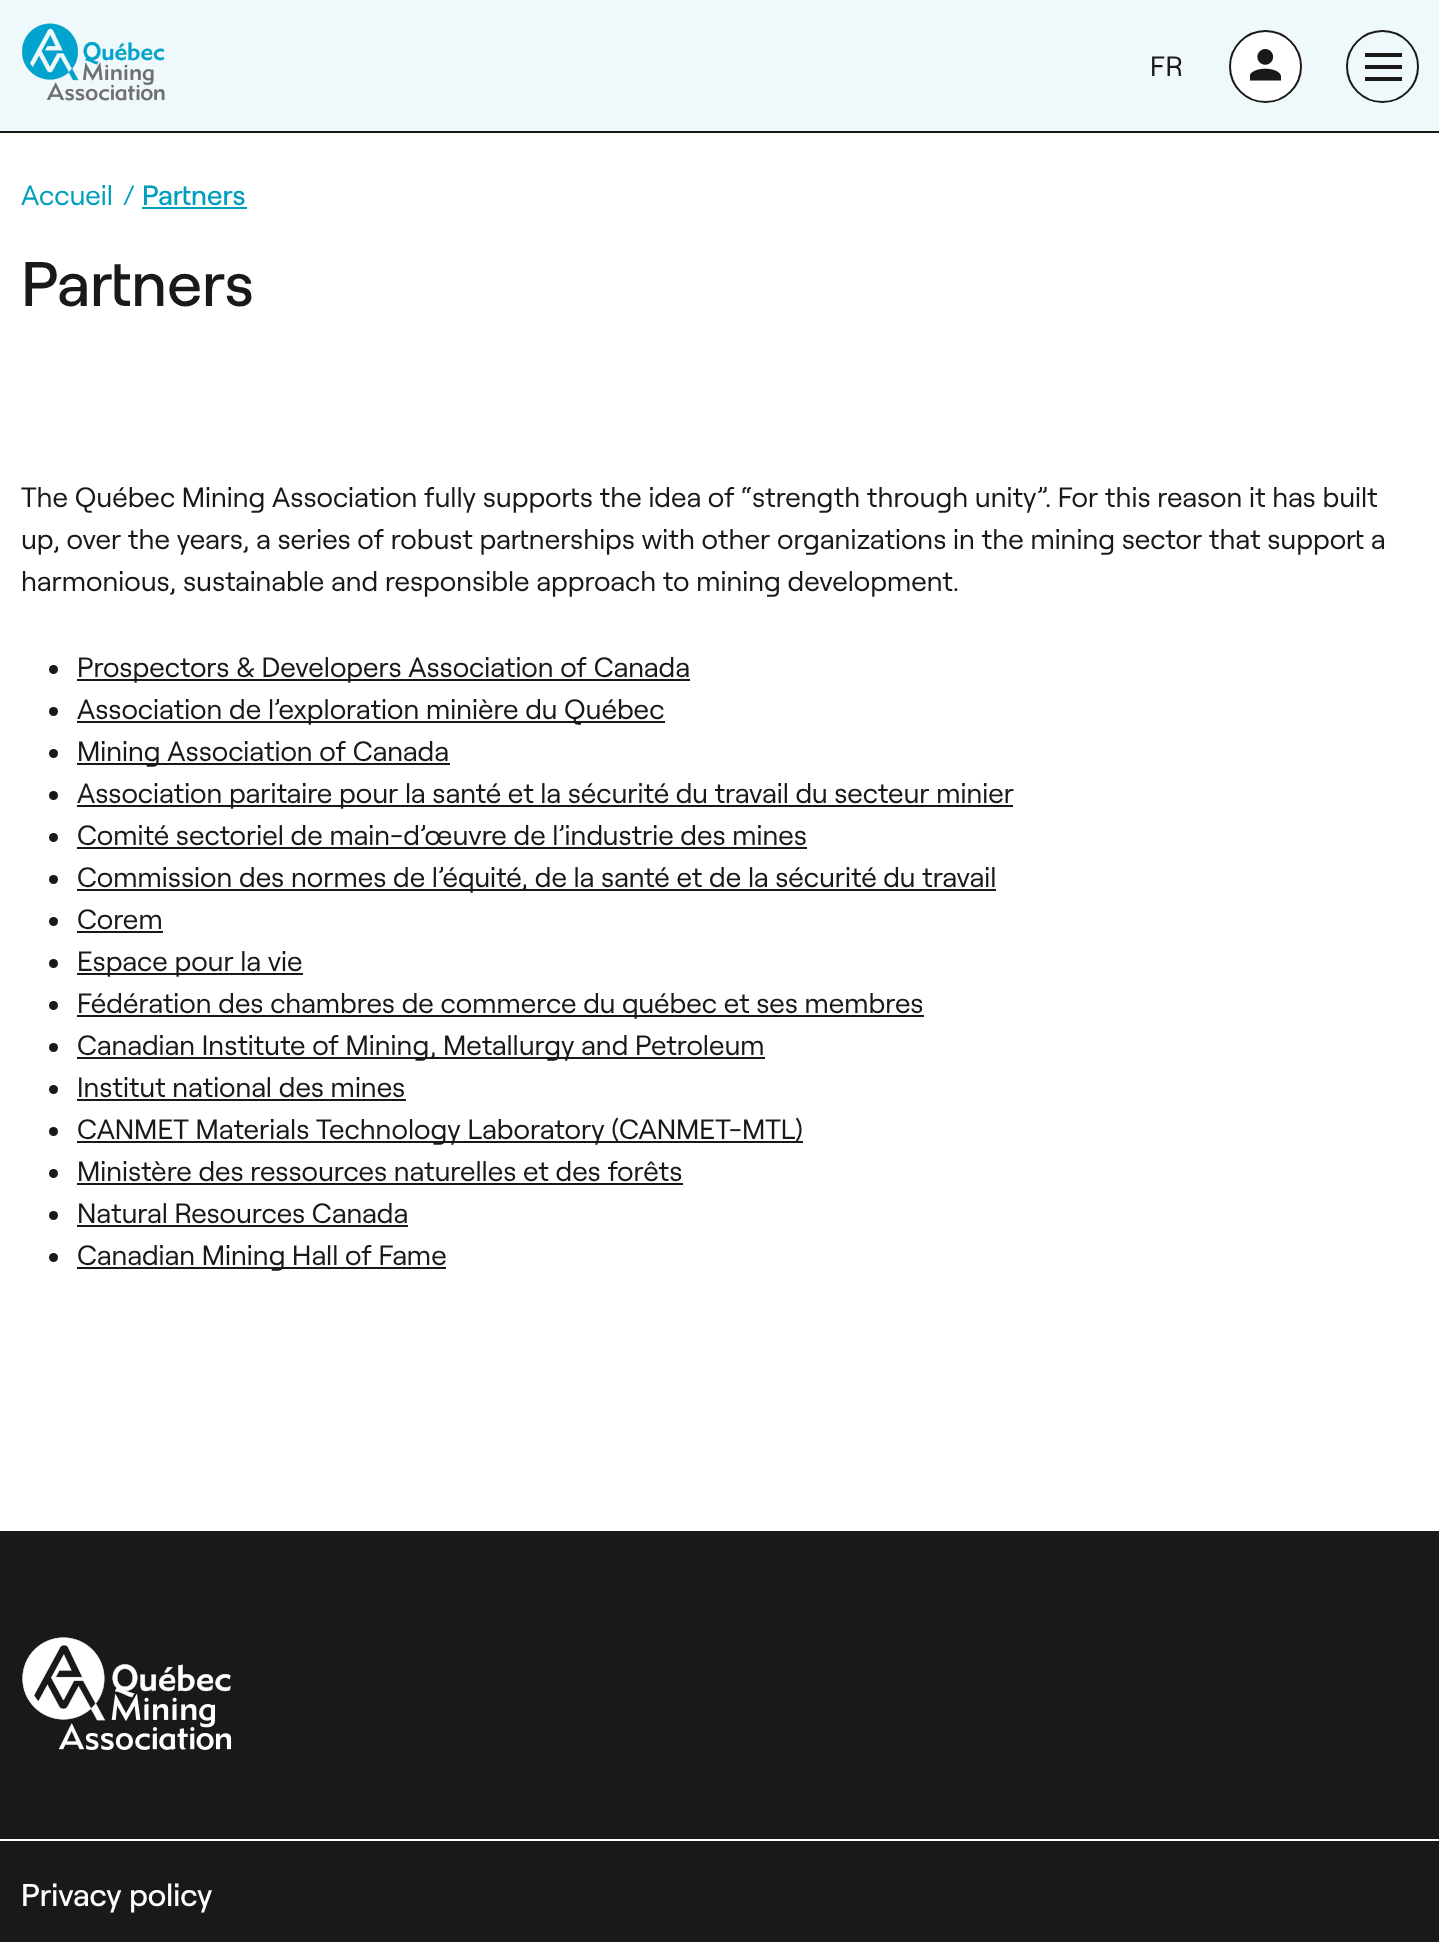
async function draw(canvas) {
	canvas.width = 1439;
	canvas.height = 1942;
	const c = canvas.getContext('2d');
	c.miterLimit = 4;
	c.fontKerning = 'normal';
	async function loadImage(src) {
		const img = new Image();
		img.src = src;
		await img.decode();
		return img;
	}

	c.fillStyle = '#fff';
	c.fillRect(0, 0, 1439, 1942);
	c.fillStyle = '#eff9fb';
	c.fillRect(0, 0, 1439, 131);
	c.drawImage(await loadImage('img1.png'), 22, 23, 143, 78);
	c.font = '28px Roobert';
	c.fillStyle = '#1a1818';
	c.fillText('FR', 1150, 76);
	c.fillStyle = '#fff';
	c.beginPath();
	c.arc(1265.5, 66.5, 35.5, 0, 2 * Math.PI);
	c.fill();
	c.strokeStyle = '#1a1818';
	c.lineWidth = 2;
	c.stroke();
	c.drawImage(await loadImage('img2.png'), 1250, 49, 31, 32);
	c.beginPath();
	c.arc(1382.5, 66.5, 35.5, 0, 2 * Math.PI);
	c.stroke();
	for (const [x, y, w, h, color] of [
		[1365, 53, 37, 4, '#1a1818'],
		[1365, 65, 37, 4, '#1a1818'],
		[1365, 77, 37, 4, '#1a1818'],
		[0, 131, 1439, 2, '#1a1818'],
	]) {
		c.fillStyle = color;
		c.fillRect(x, y, w, h);
	}
	c.fillStyle = '#009ebd';
	c.fillText('Accueil', 21, 205);
	c.fillText('/', 123, 205);
	c.font = '500 28px Roobert';
	c.fillText('Partners', 142, 205);
	c.fillRect(142, 207, 105, 2);
	c.font = '500 63px Roobert';
	c.fillStyle = '#1a1818';
	c.fillText('Partners', 21, 306);
	c.font = '28px Roobert';
	for (const [text, x, y] of [
		['The Québec Mining Association fully supports the idea of “strength through unity”. For this reason it has built', 21, 507],
		['up, over the years, a series of robust partnerships with other organizations in the mining sector that support a', 21, 549],
		['harmonious, sustainable and responsible approach to mining development.', 21, 591],
	]) {
		c.fillText(text, x, y);
	}
	c.beginPath();
	c.arc(53.5, 669.5, 4.5, 0, 2 * Math.PI);
	c.fill();
	c.fillRect(77, 679, 613, 2);
	c.fillText('Prospectors & Developers Association of Canada', 77, 677);
	c.beginPath();
	c.arc(53.5, 711.5, 4.5, 0, 2 * Math.PI);
	c.fill();
	c.fillRect(77, 721, 588, 2);
	c.fillText('Association de l’exploration minière du Québec', 77, 719);
	c.beginPath();
	c.arc(53.5, 753.5, 4.5, 0, 2 * Math.PI);
	c.fill();
	c.fillRect(77, 763, 373, 2);
	c.fillText('Mining Association of Canada', 77, 761);
	c.beginPath();
	c.arc(53.5, 795.5, 4.5, 0, 2 * Math.PI);
	c.fill();
	c.fillRect(77, 805, 936, 2);
	c.fillText('Association paritaire pour la santé et la sécurité du travail du secteur minier', 77, 803);
	c.beginPath();
	c.arc(53.5, 837.5, 4.5, 0, 2 * Math.PI);
	c.fill();
	c.fillText('Comité sectoriel de main-d’œuvre de l’industrie des mines', 77, 845);
	c.fillRect(77, 847, 730, 2);
	c.beginPath();
	c.arc(53.5, 879.5, 4.5, 0, 2 * Math.PI);
	c.fill();
	c.fillRect(77, 889, 919, 2);
	c.fillText('Commission des normes de l’équité, de la santé et de la sécurité du travail', 77, 887);
	c.beginPath();
	c.arc(53.5, 921.5, 4.5, 0, 2 * Math.PI);
	c.fill();
	c.fillText('Corem', 77, 929);
	c.fillRect(77, 931, 86, 2);
	c.beginPath();
	c.arc(53.5, 963.5, 4.5, 0, 2 * Math.PI);
	c.fill();
	c.fillRect(77, 973, 226, 2);
	c.fillText('Espace pour la vie', 77, 971);
	c.beginPath();
	c.arc(53.5, 1005.5, 4.5, 0, 2 * Math.PI);
	c.fill();
	c.fillRect(77, 1015, 847, 2);
	c.fillText('Fédération des chambres de commerce du québec et ses membres', 77, 1013);
	c.beginPath();
	c.arc(53.5, 1047.5, 4.5, 0, 2 * Math.PI);
	c.fill();
	c.fillRect(77, 1057, 688, 2);
	c.fillText('Canadian Institute of Mining, Metallurgy and Petroleum', 77, 1055);
	c.beginPath();
	c.arc(53.5, 1089.5, 4.5, 0, 2 * Math.PI);
	c.fill();
	c.fillText('Institut national des mines', 77, 1097);
	c.fillRect(77, 1099, 329, 2);
	c.beginPath();
	c.arc(53.5, 1131.5, 4.5, 0, 2 * Math.PI);
	c.fill();
	c.fillRect(77, 1141, 726, 2);
	c.fillText('CANMET Materials Technology Laboratory (CANMET-MTL)', 77, 1139);
	c.beginPath();
	c.arc(53.5, 1173.5, 4.5, 0, 2 * Math.PI);
	c.fill();
	c.fillText('Ministère des ressources naturelles et des forêts', 77, 1181);
	c.fillRect(77, 1183, 606, 2);
	c.beginPath();
	c.arc(53.5, 1215.5, 4.5, 0, 2 * Math.PI);
	c.fill();
	c.fillText('Natural Resources Canada', 77, 1223);
	c.fillRect(77, 1225, 331, 2);
	c.beginPath();
	c.arc(53.5, 1257.5, 4.5, 0, 2 * Math.PI);
	c.fill();
	c.fillRect(77, 1267, 369, 2);
	c.fillText('Canadian Mining Hall of Fame', 77, 1265);
	c.fillRect(0, 1531, 1439, 411);
	c.fillStyle = '#fff';
	c.fillRect(0, 1839, 1439, 2);
	c.drawImage(await loadImage('img3.png'), 22, 1637, 210, 113);
	c.font = '500 31.5px Roobert';
	c.fillText('Privacy policy', 21, 1906);
}

draw(document.querySelector('canvas'));
